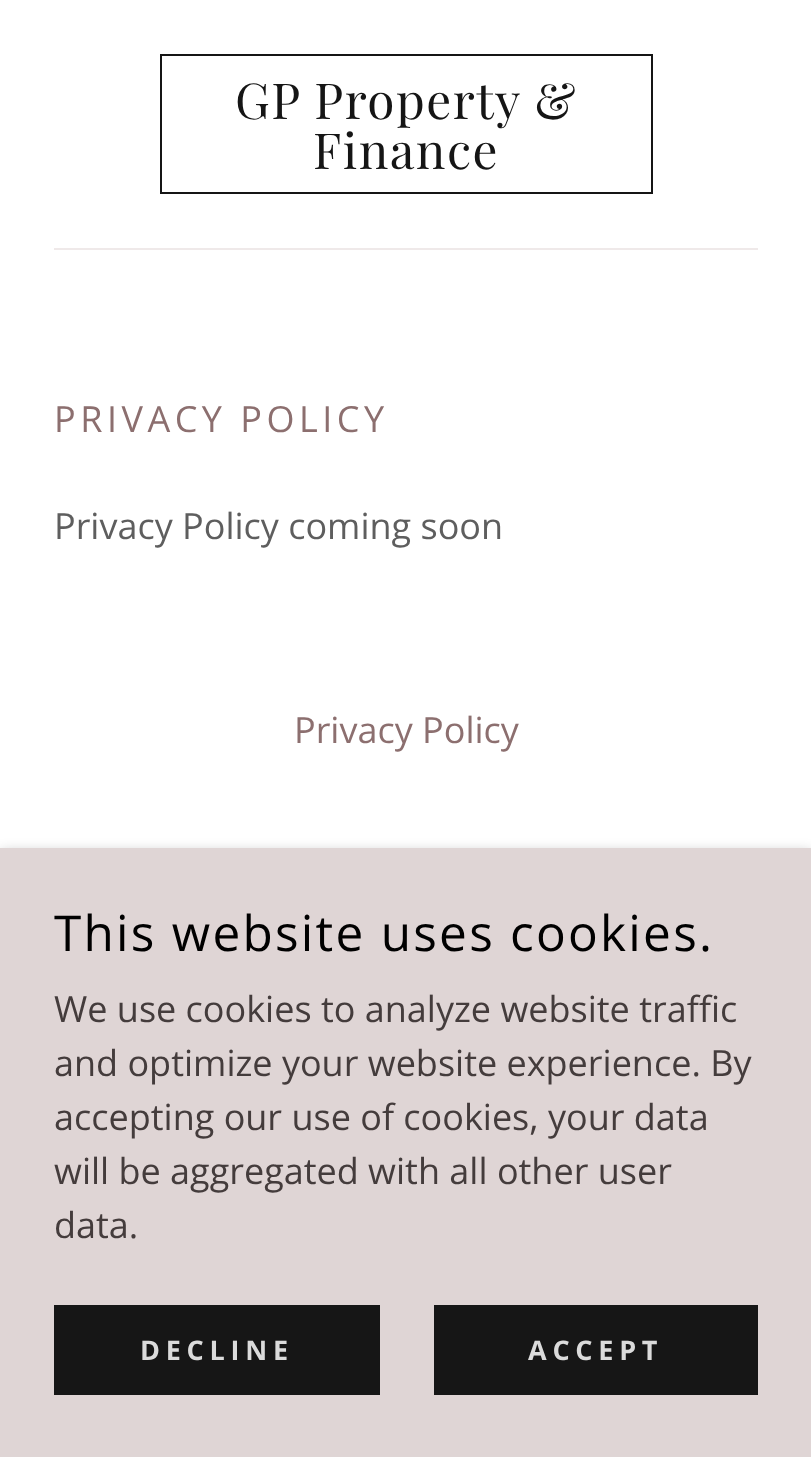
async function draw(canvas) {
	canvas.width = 811;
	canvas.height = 1457;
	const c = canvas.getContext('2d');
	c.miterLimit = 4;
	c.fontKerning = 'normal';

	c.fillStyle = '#fff';
	c.fillRect(0, 0, 811, 1457);
	c.strokeStyle = '#151515';
	c.lineWidth = 2;
	c.strokeRect(161, 55, 491, 138);
	c.letterSpacing = '1.5px';
	c.font = '49.5px Playfair Display';
	c.fillStyle = '#151515';
	c.fillText('GP Property &', 235, 119);
	c.fillText('Finance', 313, 169);
	c.fillStyle = '#efe9e9';
	c.fillRect(54, 248, 704, 2);
	c.letterSpacing = '4.5px';
	c.font = '36px Open Sans';
	c.fillStyle = '#8c6f6f';
	c.fillText('PRIVACY POLICY', 54, 432);
	c.letterSpacing = '0px';
	c.fillStyle = '#5e5e5e';
	c.fillText('Privacy Policy coming soon', 54, 539);
	c.fillStyle = '#8c6f6f';
	c.fillText('Privacy Policy', 294, 743);
	c.fillStyle = '#0000004d';
	c.filter = 'blur(7px)';
	c.beginPath();
	c.rect(0, 853, 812, 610);
	c.fill();
	c.filter = 'none';
	c.fillStyle = '#dfd5d5';
	c.fillRect(0, 848, 811, 609);
	c.letterSpacing = '2.25px';
	c.font = '49.5px Open Sans';
	c.fillStyle = '#000';
	c.fillText('This website uses cookies.', 54, 951);
	c.letterSpacing = '0px';
	c.font = '36px Open Sans';
	c.fillStyle = '#443c3c';
	for (const [text, x, y] of [
		['We use cookies to analyze website traffic', 54, 1022],
		['and optimize your website experience. By', 54, 1076],
		['accepting our use of cookies, your data', 54, 1130],
		['will be aggregated with all other user', 54, 1184],
		['data.', 54, 1238],
	]) {
		c.fillText(text, x, y);
	}
	c.fillStyle = '#161616';
	c.fillRect(54, 1305, 326, 90);
	c.letterSpacing = '5.75px';
	c.font = 'bold 27px Open Sans';
	c.fillStyle = '#dbdbdb';
	c.fillText('DECLINE', 140, 1360);
	c.fillStyle = '#161616';
	c.fillRect(434, 1305, 324, 90);
	c.fillStyle = '#dbdbdb';
	c.fillText('ACCEPT', 528, 1360);
}

draw(document.querySelector('canvas'));
